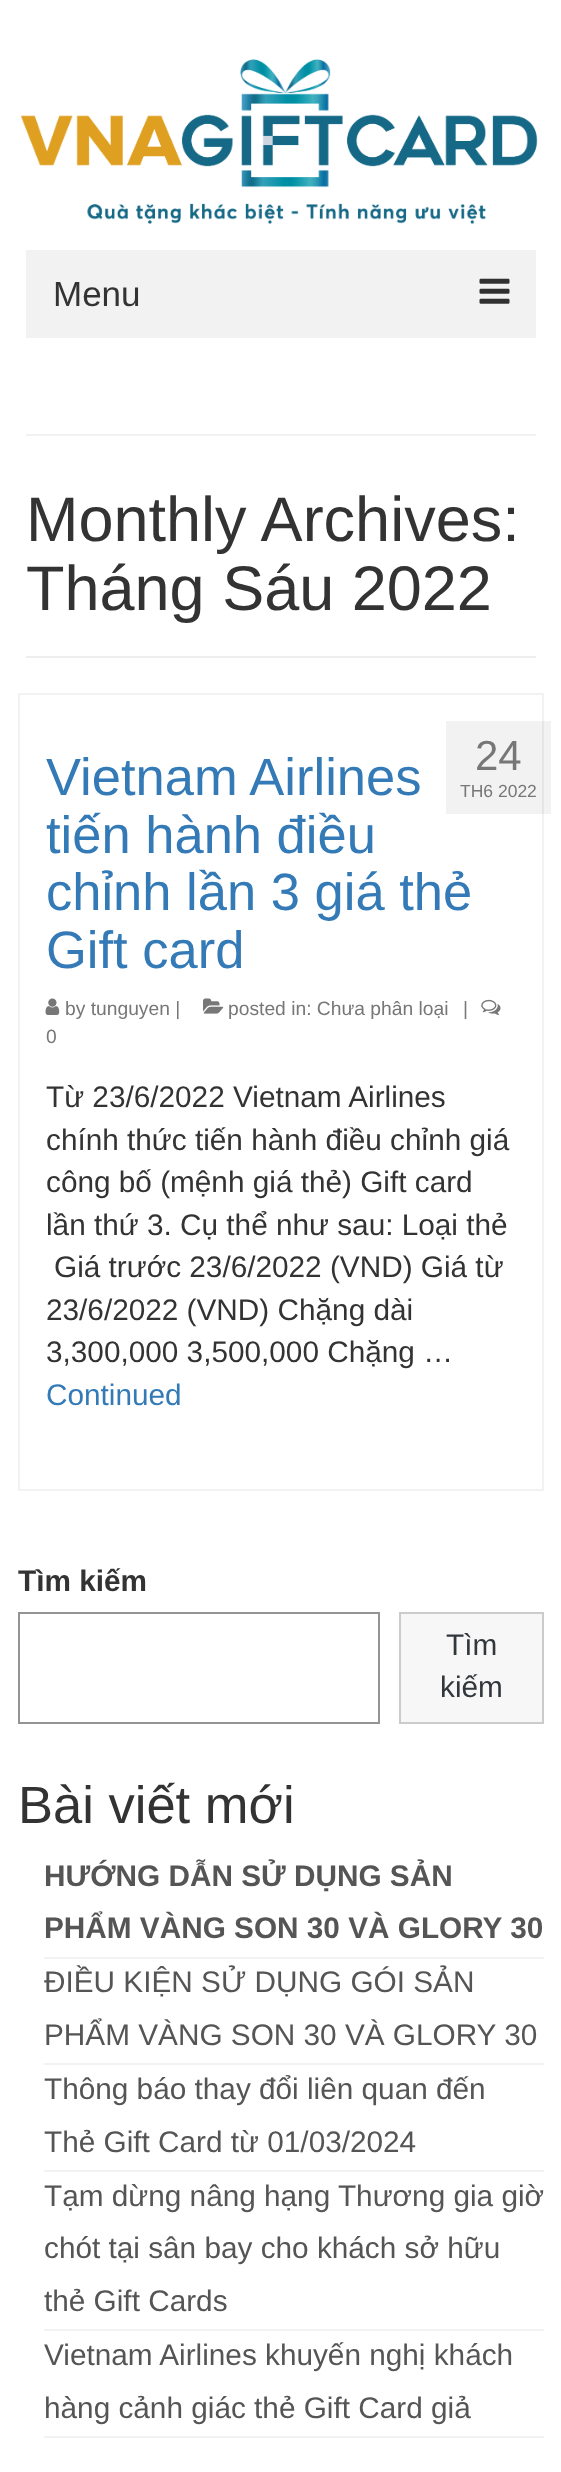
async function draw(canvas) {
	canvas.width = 561;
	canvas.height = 2472;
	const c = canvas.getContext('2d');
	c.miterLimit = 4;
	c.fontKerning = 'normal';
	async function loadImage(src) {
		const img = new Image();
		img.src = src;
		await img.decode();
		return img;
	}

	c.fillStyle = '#fff';
	c.fillRect(0, 0, 561, 2472);
	c.drawImage(await loadImage('img1.png'), 21, 59, 517, 166);
	c.fillStyle = '#f2f2f2';
	c.fillRect(26, 250, 510, 88);
	c.font = '35px Liberation Sans';
	c.fillStyle = '#333';
	c.fillText('Menu', 53, 306);
	c.drawImage(await loadImage('img2.png'), 479, 278, 31, 26);
	c.fillStyle = '#f2f2f2';
	c.fillRect(26, 434, 510, 2);
	c.fillStyle = '#eee';
	c.fillRect(26, 656, 510, 2);
	c.font = '63px Liberation Sans';
	c.fillStyle = '#333';
	c.fillText('Monthly Archives:', 26, 541);
	c.fillText('Tháng Sáu 2022', 26, 610);
	c.strokeStyle = '#f2f2f2';
	c.lineWidth = 2;
	c.strokeRect(19, 694, 524, 796);
	c.font = '52.5px Liberation Sans';
	c.fillStyle = '#337ab7';
	for (const [text, x, y] of [
		['Vietnam Airlines', 46, 795],
		['tiến hành điều', 46, 853],
		['chỉnh lần 3 giá thẻ', 46, 910],
		['Gift card', 46, 968],
	]) {
		c.fillText(text, x, y);
	}
	c.drawImage(await loadImage('img3.png'), 45, 998, 15, 17);
	c.font = '19.25px Liberation Sans';
	c.fillStyle = '#777';
	c.fillText('by tunguyen |', 65, 1015);
	c.drawImage(await loadImage('img4.png'), 203, 998, 21, 16);
	c.fillText('posted in: Chưa phân loại', 228, 1015);
	c.fillText('|', 463, 1015);
	c.drawImage(await loadImage('img5.png'), 481, 999, 20, 16);
	c.fillText('0', 46, 1043);
	c.fillStyle = '#0000000d';
	c.fillRect(446, 721, 105, 93);
	c.font = '42px Liberation Sans';
	c.fillStyle = '#777';
	c.fillText('24', 475, 770);
	c.font = '17.5px Liberation Sans';
	c.fillText('TH6 2022', 460, 797);
	c.font = '29.75px Liberation Sans';
	c.fillStyle = '#333';
	for (const [text, x, y] of [
		['Từ 23/6/2022 Vietnam Airlines', 46, 1107],
		['chính thức tiến hành điều chỉnh giá', 46, 1150],
		['công bố (mệnh giá thẻ) Gift card', 46, 1192],
		['lần thứ 3. Cụ thể như sau: Loại thẻ', 46, 1235],
		['Giá trước 23/6/2022 (VND) Giá từ', 54, 1277],
		['23/6/2022 (VND) Chặng dài', 46, 1320],
		['3,300,000 3,500,000 Chặng …', 46, 1362],
	]) {
		c.fillText(text, x, y);
	}
	c.fillStyle = '#337ab7';
	c.fillText('Continued', 46, 1405);
	c.font = 'bold 29.75px Liberation Sans';
	c.fillStyle = '#333';
	c.fillText('Tìm kiếm', 18, 1591);
	c.strokeStyle = '#949494';
	c.strokeRect(19, 1613, 360, 110);
	c.fillStyle = '#f7f7f7';
	c.beginPath();
	c.rect(400, 1613, 143, 110);
	c.fill();
	c.strokeStyle = '#ccc';
	c.stroke();
	c.font = '29.75px Liberation Sans';
	c.fillStyle = '#32373c';
	c.fillText('Tìm', 446, 1655);
	c.fillText('kiếm', 440, 1697);
	c.font = '52.5px Liberation Sans';
	c.fillStyle = '#333';
	c.fillText('Bài viết mới', 18, 1823);
	c.fillStyle = '#f2f2f2';
	c.fillRect(44, 1957, 500, 2);
	c.font = 'bold 29.75px Liberation Sans';
	c.fillStyle = '#555';
	c.fillText('HƯỚNG DẪN SỬ DỤNG SẢN', 44, 1886);
	c.fillText('PHẨM VÀNG SON 30 VÀ GLORY 30', 44, 1938);
	c.fillStyle = '#f2f2f2';
	c.fillRect(44, 2063, 500, 2);
	c.font = '29.75px Liberation Sans';
	c.fillStyle = '#555';
	c.fillText('ĐIỀU KIỆN SỬ DỤNG GÓI SẢN', 44, 1992);
	c.fillText('PHẨM VÀNG SON 30 VÀ GLORY 30', 44, 2045);
	c.fillStyle = '#f2f2f2';
	c.fillRect(44, 2170, 500, 2);
	c.fillStyle = '#555';
	c.fillText('Thông báo thay đổi liên quan đến', 44, 2099);
	c.fillText('Thẻ Gift Card từ 01/03/2024', 44, 2152);
	c.fillStyle = '#f2f2f2';
	c.fillRect(44, 2329, 500, 2);
	c.fillStyle = '#555';
	for (const [text, x, y] of [
		['Tạm dừng nâng hạng Thương gia giờ', 44, 2206],
		['chót tại sân bay cho khách sở hữu', 44, 2258],
		['thẻ Gift Cards', 44, 2311],
	]) {
		c.fillText(text, x, y);
	}
	c.fillStyle = '#f2f2f2';
	c.fillRect(44, 2436, 500, 2);
	c.fillStyle = '#555';
	c.fillText('Vietnam Airlines khuyến nghị khách', 44, 2365);
	c.fillText('hàng cảnh giác thẻ Gift Card giả', 44, 2418);
}

draw(document.querySelector('canvas'));
